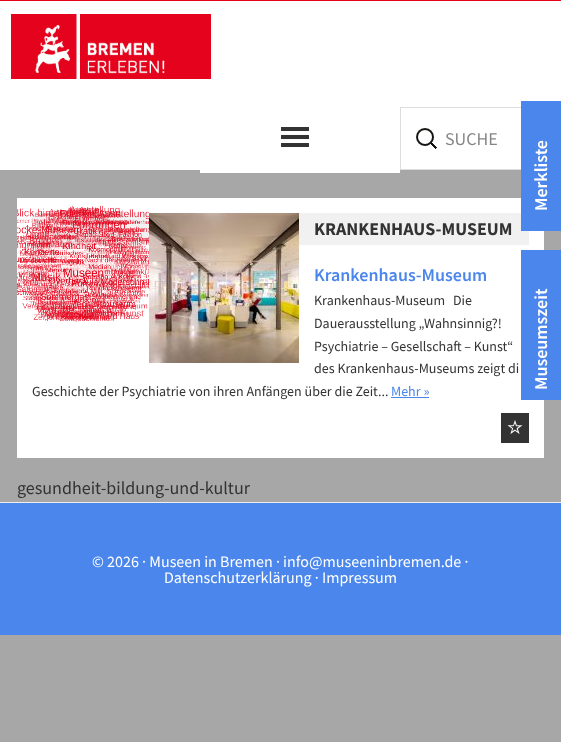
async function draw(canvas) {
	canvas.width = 561;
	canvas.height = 742;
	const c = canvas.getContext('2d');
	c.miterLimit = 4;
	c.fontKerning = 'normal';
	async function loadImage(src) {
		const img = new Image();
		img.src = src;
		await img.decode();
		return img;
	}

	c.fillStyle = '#a7a7a7';
	c.fillRect(0, 0, 561, 742);
	c.fillStyle = '#e4021c';
	c.fillRect(0, 0, 561, 1);
	c.fillStyle = '#fff';
	c.fillRect(0, 1, 561, 169);
	c.drawImage(await loadImage('img1.png'), 11, 14, 200, 65);
	c.fillRect(200, 170, 200, 3);
	c.drawImage(await loadImage('img2.png'), 281, 127, 28, 20);
	c.drawImage(await loadImage('img3.png'), 416, 128, 21, 21);
	c.strokeStyle = '#ddd';
	c.strokeRect(400.5, 107.5, 149, 62);
	c.font = '18px Source Sans Pro';
	c.fillStyle = '#858585';
	c.fillText('SUCHE', 445, 145);
	for (const [x, y, w, h, color] of [
		[17, 198, 527, 260, '#fff'],
		[32, 213, 497, 32, '#f1f1f1'],
		[521, 101, 40, 130, '#4a86ec'],
	]) {
		c.fillStyle = color;
		c.fillRect(x, y, w, h);
	}
	c.font = '600 18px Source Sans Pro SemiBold';
	c.fillStyle = '#fff';
	c.save();
	c.translate(547, 211);
	c.rotate(-90 * Math.PI / 180);
	c.fillText('Merkliste', 0, 0);
	c.restore();
	c.drawImage(await loadImage('img4.png'), 17, 205, 132, 117);
	c.drawImage(await loadImage('img5.png'), 149, 213, 150, 150);
	c.font = 'bold 18px Source Sans Pro';
	c.fillStyle = '#333';
	c.fillText('KRANKENHAUS-MUSEUM', 314, 235);
	c.font = '600 18px Source Sans Pro SemiBold';
	c.fillStyle = '#4a86ec';
	c.fillText('Krankenhaus-Museum', 314, 281);
	c.font = '14px Source Sans Pro';
	c.fillStyle = '#333';
	for (const [text, x, y] of [
		['Krankenhaus-Museum', 314, 305],
		['Die', 453, 305],
		['Dauerausstellung „Wahnsinnig?!', 314, 328],
		['Psychiatrie – Gesellschaft – Kunst“', 314, 351],
		['des Krankenhaus-Museums zeigt di', 314, 373],
		['Geschichte der Psychiatrie von ihren Anfängen über die Zeit...', 32, 396],
	]) {
		c.fillText(text, x, y);
	}
	c.fillStyle = '#4a86ec';
	c.fillText('Mehr »', 391, 396);
	c.fillRect(391, 397, 38, 1);
	c.fillStyle = '#333';
	c.fillRect(501, 413, 28, 30);
	c.drawImage(await loadImage('img6.png'), 507, 420, 16, 14);
	c.fillStyle = '#4a86ec';
	c.fillRect(521, 250, 40, 150);
	c.font = '600 18px Source Sans Pro SemiBold';
	c.fillStyle = '#fff';
	c.save();
	c.translate(547, 390);
	c.rotate(-90 * Math.PI / 180);
	c.fillText('Museumszeit', 0, 0);
	c.restore();
	c.font = '18px Source Sans Pro';
	c.fillStyle = '#333';
	c.fillText('gesundheit-bildung-und-kultur', 17, 494);
	c.fillStyle = '#4a86ec';
	c.fillRect(0, 503, 561, 132);
	c.fillStyle = '#eee';
	c.fillRect(0, 502, 561, 1);
	c.font = '16px Source Sans Pro';
	c.fillStyle = '#fff';
	c.fillText('© 2026 · Museen in Bremen · info@museeninbremen.de ·', 92, 567);
	c.fillText('Datenschutzerklärung · Impressum', 164, 583);
}

draw(document.querySelector('canvas'));
